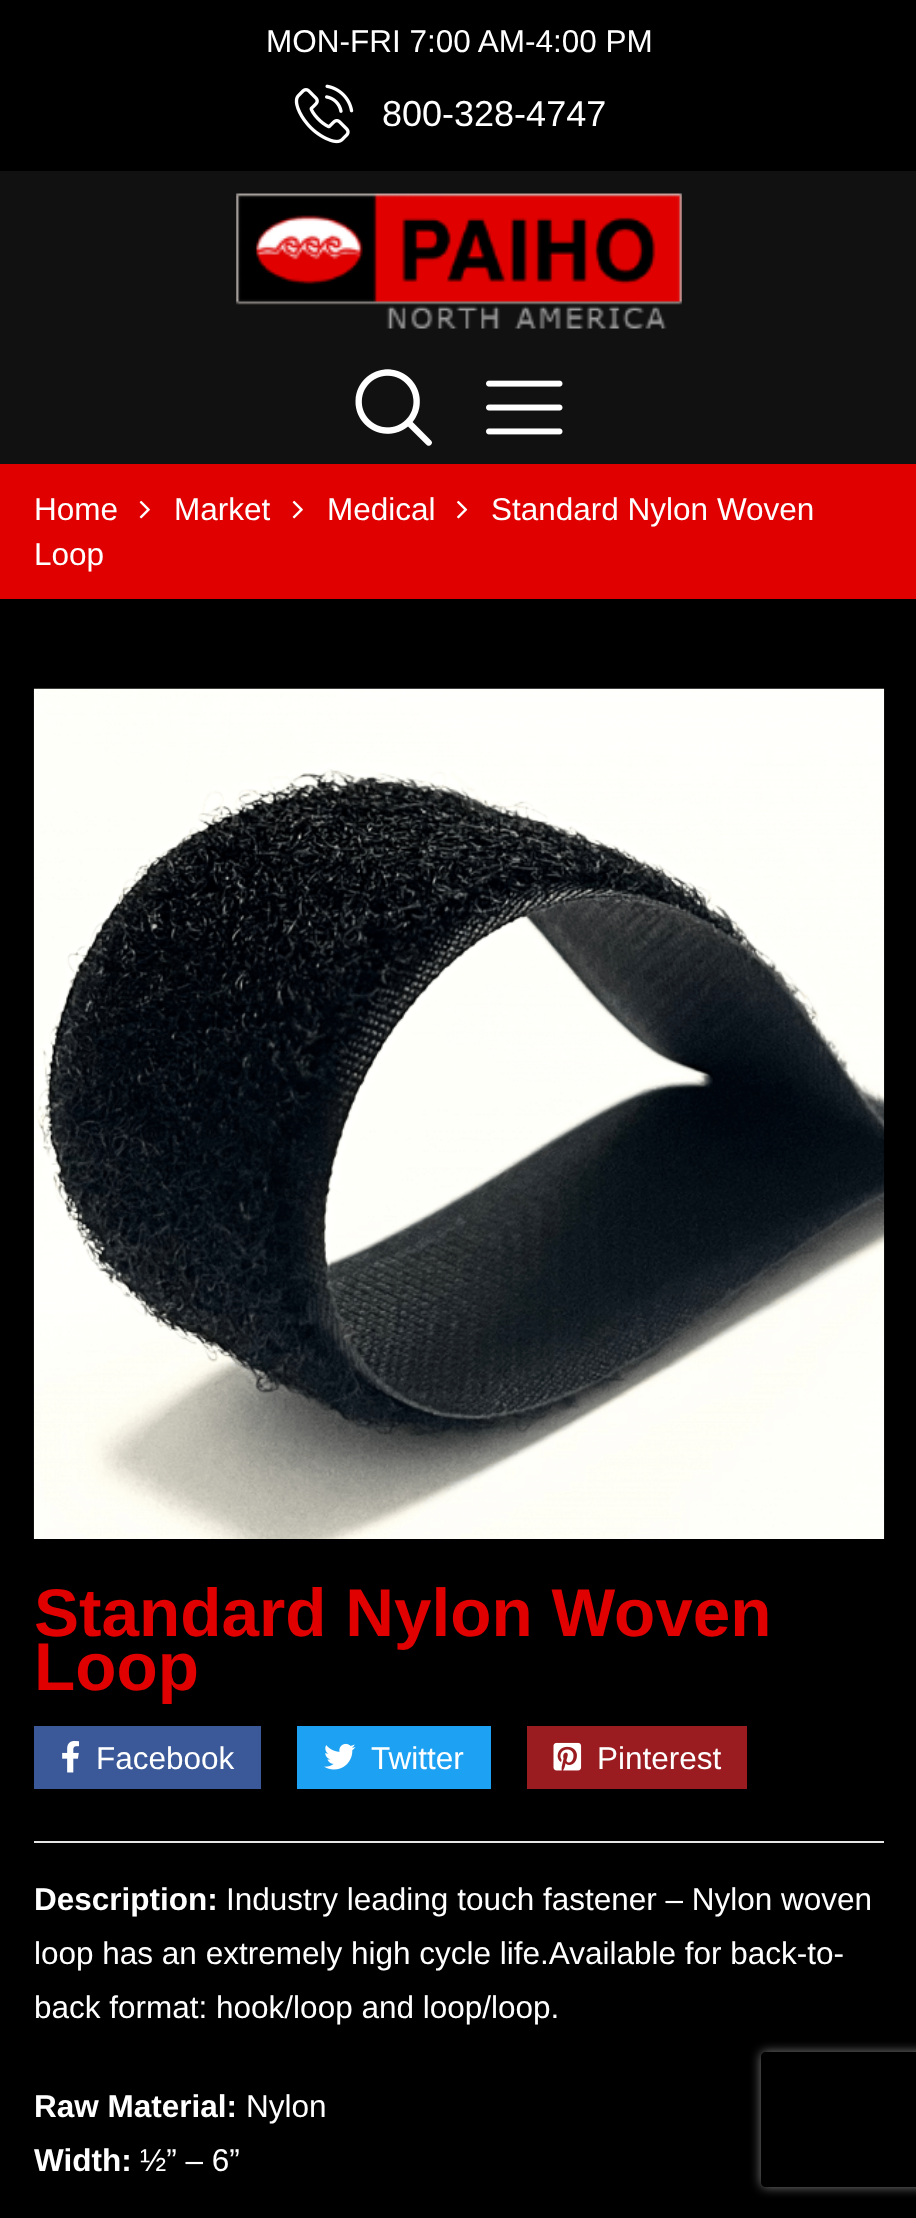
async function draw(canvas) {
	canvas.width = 916;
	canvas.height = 2218;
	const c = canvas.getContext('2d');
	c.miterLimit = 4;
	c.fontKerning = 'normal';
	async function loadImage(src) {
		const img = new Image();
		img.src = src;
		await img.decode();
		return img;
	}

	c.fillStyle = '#000';
	c.fillRect(0, 0, 916, 2218);
	c.font = '31.5px Liberation Sans';
	c.fillStyle = '#fff';
	c.fillText('MON-FRI 7:00 AM-4:00 PM', 266, 52);
	c.drawImage(await loadImage('img1.png'), 294, 84, 60, 60);
	c.font = '36px Liberation Sans';
	c.fillText('800-328-4747', 382, 126);
	c.fillStyle = '#111';
	c.fillRect(0, 171, 916, 293);
	c.drawImage(await loadImage('img2.png'), 236, 193, 446, 136);
	c.drawImage(await loadImage('img3.png'), 355, 369, 77, 77);
	c.drawImage(await loadImage('img4.png'), 486, 380, 77, 55);
	c.fillStyle = '#e00000';
	c.fillRect(0, 464, 916, 135);
	c.font = '31.5px Liberation Sans';
	c.fillStyle = '#fff';
	c.fillText('Home', 34, 520);
	c.drawImage(await loadImage('img5.png'), 139, 500, 11, 19);
	c.fillText('Market', 174, 520);
	c.drawImage(await loadImage('img5.png'), 292, 500, 11, 19);
	c.fillText('Medical', 327, 520);
	c.drawImage(await loadImage('img6.png'), 457, 500, 11, 19);
	c.fillText('Standard Nylon Woven', 491, 520);
	c.fillText('Loop', 34, 565);
	c.drawImage(await loadImage('img7.png'), 33, 688, 852, 851);
	c.font = 'bold 67.5px Liberation Sans';
	c.fillStyle = '#e00000';
	c.fillText('Standard Nylon Woven', 34, 1636);
	c.fillText('Loop', 34, 1690);
	c.fillStyle = '#3b5998';
	c.fillRect(34, 1726, 227, 63);
	c.drawImage(await loadImage('img8.png'), 62, 1740, 18, 33);
	c.font = '31.5px Liberation Sans';
	c.fillStyle = '#fff';
	c.fillText('Facebook', 96, 1769);
	c.fillStyle = '#1da1f2';
	c.fillRect(297, 1726, 194, 63);
	c.drawImage(await loadImage('img9.png'), 324, 1743, 32, 27);
	c.fillStyle = '#fff';
	c.fillText('Twitter', 371, 1769);
	c.fillStyle = '#9a1c20';
	c.fillRect(527, 1726, 220, 63);
	c.drawImage(await loadImage('img10.png'), 553, 1742, 29, 29);
	c.fillStyle = '#fff';
	c.fillText('Pinterest', 597, 1769);
	c.fillStyle = '#e6e6e6';
	c.fillRect(34, 1841, 850, 2);
	c.font = 'bold 31.5px Liberation Sans';
	c.fillStyle = '#fff';
	c.fillText('Description:', 34, 1910);
	c.font = '31.5px Liberation Sans';
	for (const [text, x, y] of [
		['Industry leading touch fastener – Nylon woven', 226, 1910],
		['loop has an extremely high cycle life.Available for back-to-', 34, 1964],
		['back format: hook/loop and loop/loop.', 34, 2018],
	]) {
		c.fillText(text, x, y);
	}
	c.font = 'bold 31.5px Liberation Sans';
	c.fillText('Raw Material:', 34, 2117);
	c.font = '31.5px Liberation Sans';
	c.fillText('Nylon', 246, 2117);
	c.font = 'bold 31.5px Liberation Sans';
	c.fillText('Width:', 34, 2171);
	c.font = '31.5px Liberation Sans';
	c.fillText('½” – 6”', 140, 2171);
	c.save();
	c.beginPath();
	c.moveTo(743, 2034);
	c.lineTo(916, 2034);
	c.lineTo(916, 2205);
	c.lineTo(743, 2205);
	c.closePath();
	c.moveTo(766, 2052);
	c.lineTo(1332, 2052);
	c.bezierCurveTo(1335, 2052, 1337, 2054, 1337, 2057);
	c.lineTo(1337, 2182);
	c.bezierCurveTo(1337, 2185, 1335, 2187, 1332, 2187);
	c.lineTo(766, 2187);
	c.bezierCurveTo(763, 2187, 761, 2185, 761, 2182);
	c.lineTo(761, 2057);
	c.bezierCurveTo(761, 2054, 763, 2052, 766, 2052);
	c.closePath();
	c.clip('evenodd');
	c.fillStyle = '#808080';
	c.filter = 'blur(5.5px)';
	c.beginPath();
	c.roundRect(761, 2052, 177, 135, 5);
	c.fill();
	c.filter = 'none';
	c.restore();
}

draw(document.querySelector('canvas'));
